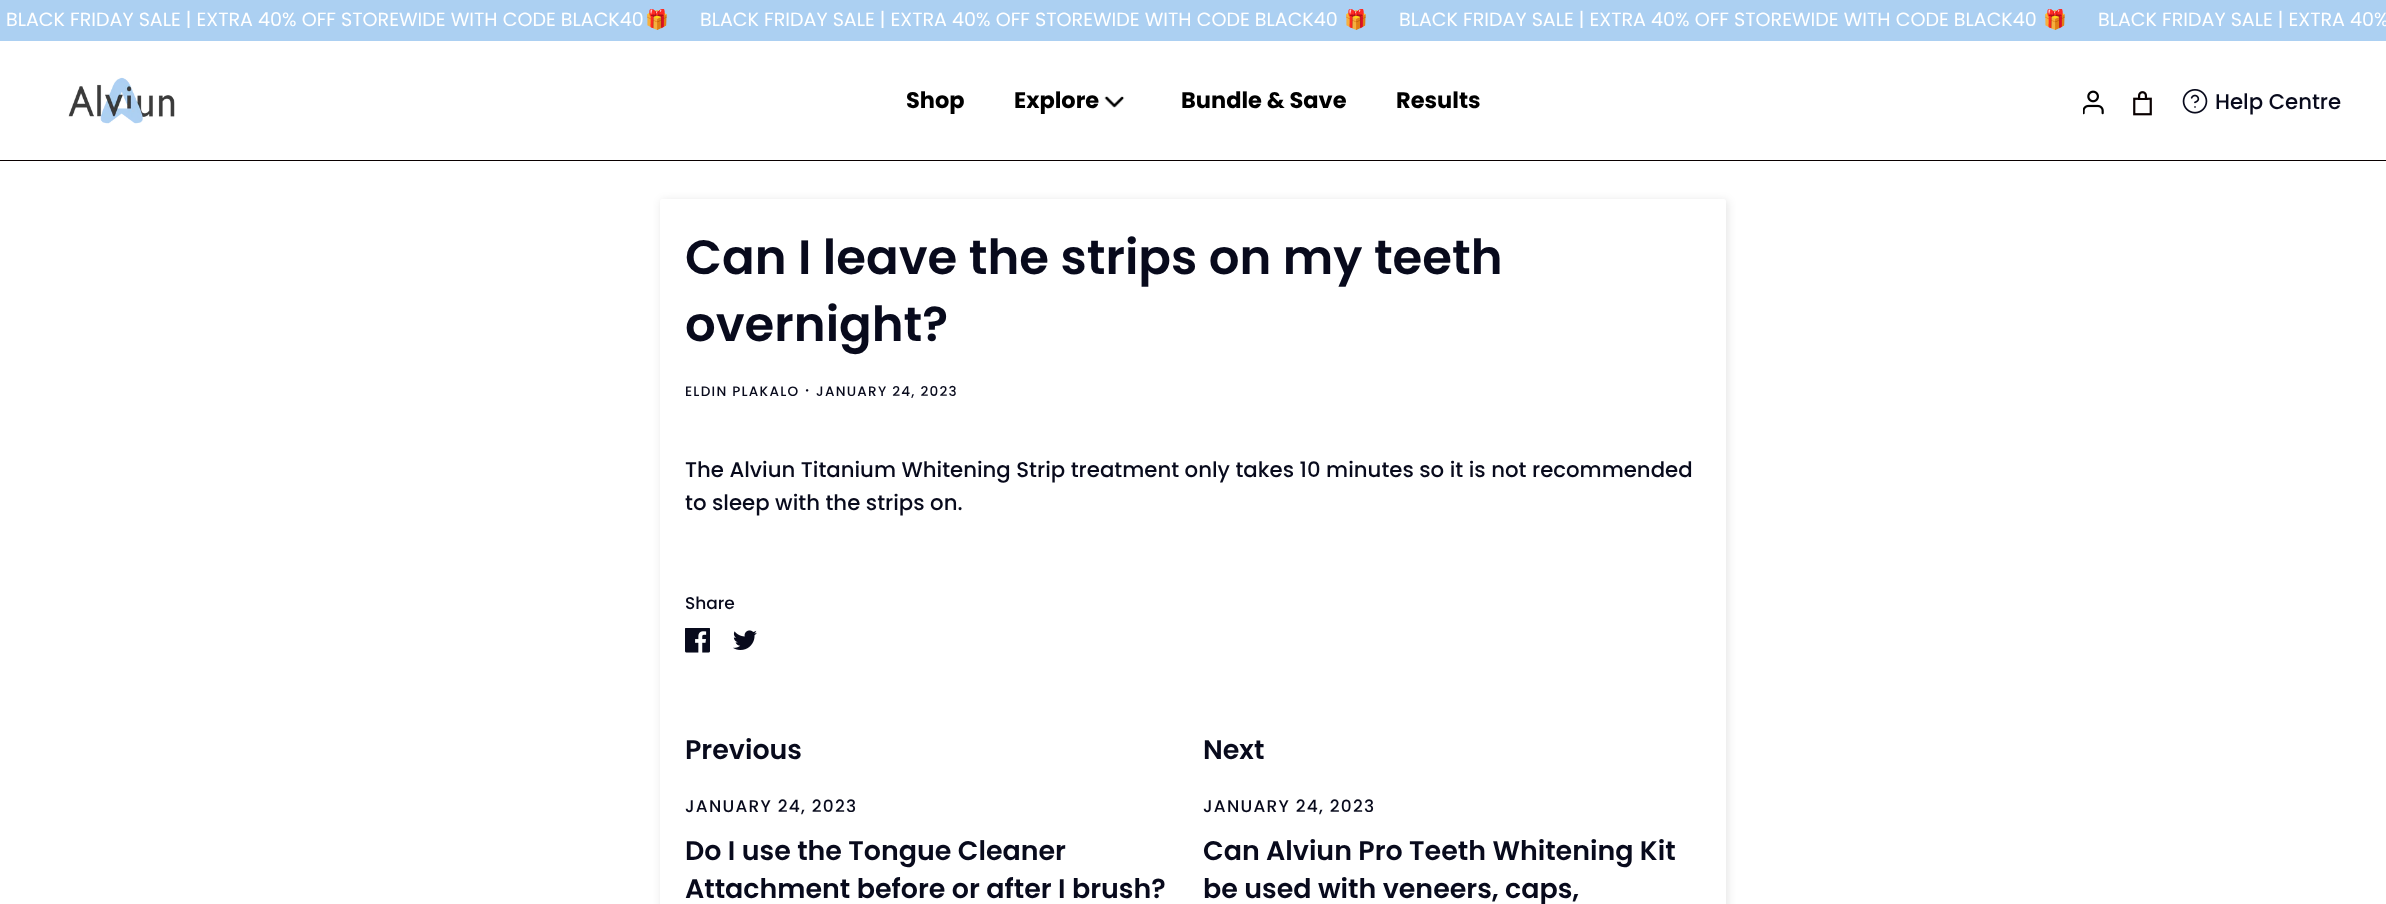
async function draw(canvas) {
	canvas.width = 2386;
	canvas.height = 904;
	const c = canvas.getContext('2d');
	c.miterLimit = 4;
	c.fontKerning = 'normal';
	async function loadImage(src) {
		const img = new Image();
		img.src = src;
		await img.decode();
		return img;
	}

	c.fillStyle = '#fff';
	c.fillRect(0, 0, 2386, 904);
	c.fillStyle = '#acd0f2';
	c.fillRect(0, 0, 2386, 41);
	c.font = '19.1px Poppins';
	c.fillStyle = '#fff';
	c.fillText('BLACK FRIDAY SALE | EXTRA 40% OFF STOREWIDE WITH CODE BLACK40', 6, 26);
	c.font = '19.1px Noto Color Emoji';
	c.fillText('🎁', 645, 26);
	c.font = '19.1px Poppins';
	c.fillText('BLACK FRIDAY SALE | EXTRA 40% OFF STOREWIDE WITH CODE BLACK40', 700, 26);
	c.font = '19.1px Noto Color Emoji';
	c.fillText('🎁', 1344, 26);
	c.font = '19.1px Poppins';
	c.fillText('BLACK FRIDAY SALE | EXTRA 40% OFF STOREWIDE WITH CODE BLACK40', 1399, 26);
	c.font = '19.1px Noto Color Emoji';
	c.fillText('🎁', 2043, 26);
	c.font = '19.1px Poppins';
	c.fillText('BLACK FRIDAY SALE | EXTRA 40%', 2098, 26);
	c.fillStyle = '#090000';
	c.fillRect(0, 160, 2386, 1);
	c.drawImage(await loadImage('img1.png'), 68, 77, 107, 47);
	c.font = 'bold 22.5px Poppins';
	c.fillStyle = '#000';
	c.fillText('Shop', 906, 108);
	c.fillText('Explore', 1014, 108);
	c.drawImage(await loadImage('img2.png'), 1104, 96, 21, 12);
	c.fillText('Bundle & Save', 1181, 108);
	c.fillText('Results', 1396, 108);
	c.drawImage(await loadImage('img3.png'), 2083, 90, 21, 25);
	c.drawImage(await loadImage('img4.png'), 2133, 91, 19, 25);
	c.drawImage(await loadImage('img5.png'), 2182, 89, 26, 25);
	c.font = '500 21.25px Poppins';
	c.fillStyle = '#080a1c';
	c.fillText('Help Centre', 2215, 109);
	c.save();
	c.beginPath();
	c.moveTo(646, 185);
	c.lineTo(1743, 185);
	c.lineTo(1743, 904);
	c.lineTo(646, 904);
	c.closePath();
	c.moveTo(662.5, 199);
	c.lineTo(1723.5, 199);
	c.bezierCurveTo(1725, 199, 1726, 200, 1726, 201.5);
	c.lineTo(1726, 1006.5);
	c.bezierCurveTo(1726, 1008, 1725, 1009, 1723.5, 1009);
	c.lineTo(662.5, 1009);
	c.bezierCurveTo(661, 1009, 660, 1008, 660, 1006.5);
	c.lineTo(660, 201.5);
	c.bezierCurveTo(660, 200, 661, 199, 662.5, 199);
	c.closePath();
	c.clip('evenodd');
	c.fillStyle = '#0000001a';
	c.filter = 'blur(4.5px)';
	c.beginPath();
	c.roundRect(661, 200, 1067, 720, 2.5);
	c.fill();
	c.filter = 'none';
	c.restore();
	c.font = '600 48.2px Poppins';
	c.fillText('Can I leave the strips on my teeth', 685, 274);
	c.fillText('overnight?', 685, 341);
	c.letterSpacing = '1.25px';
	c.font = '500 13.6px Poppins';
	c.fillText('ELDIN PLAKALO', 685, 396);
	c.font = '500 17px Poppins';
	c.fillText('·', 805, 396);
	c.font = '500 13.6px Poppins';
	c.fillText('JANUARY 24, 2023', 816, 396);
	c.letterSpacing = '0px';
	c.font = '500 21.25px Poppins';
	c.fillText('The Alviun Titanium Whitening Strip treatment only takes 10 minutes so it is not recommended', 685, 477);
	c.fillText('to sleep with the strips on.', 685, 510);
	c.font = '500 17px Poppins';
	c.fillText('Share', 685, 609);
	c.drawImage(await loadImage('img6.png'), 685, 628, 25, 25);
	c.drawImage(await loadImage('img7.png'), 733, 630, 24, 20);
	c.font = '600 26.9px Poppins';
	c.fillText('Previous', 685, 759);
	c.letterSpacing = '1.25px';
	c.font = '500 17px Poppins';
	c.fillText('JANUARY 24, 2023', 685, 812);
	c.letterSpacing = '0px';
	c.font = '600 26.9px Poppins';
	for (const [text, x, y] of [
		['Do I use the Tongue Cleaner', 685, 860],
		['Attachment before or after I brush?', 685, 898],
		['Next', 1203, 759],
	]) {
		c.fillText(text, x, y);
	}
	c.letterSpacing = '1.25px';
	c.font = '500 17px Poppins';
	c.fillText('JANUARY 24, 2023', 1203, 812);
	c.letterSpacing = '0px';
	c.font = '600 26.9px Poppins';
	c.fillText('Can Alviun Pro Teeth Whitening Kit', 1203, 860);
	c.fillText('be used with veneers, caps,', 1203, 898);
}

draw(document.querySelector('canvas'));
